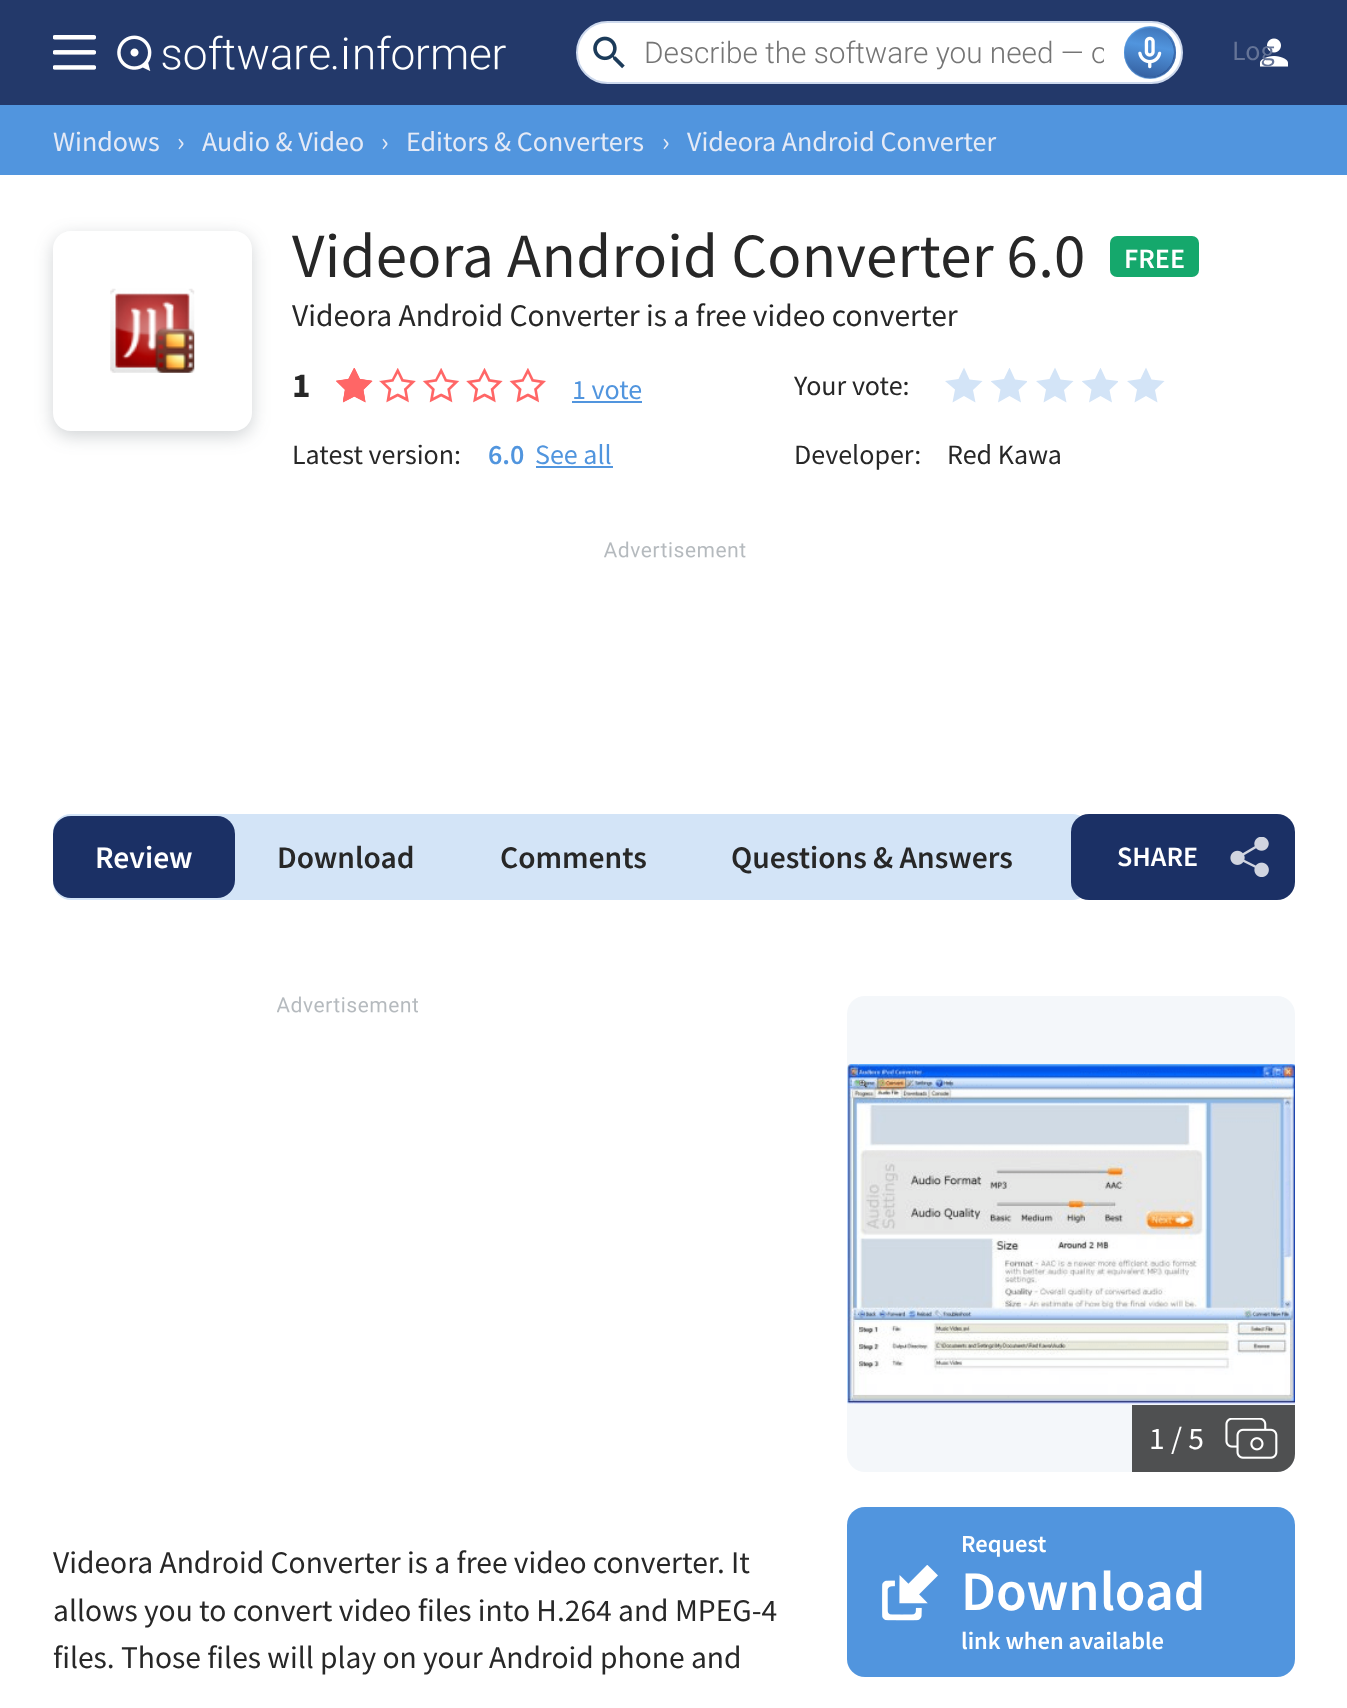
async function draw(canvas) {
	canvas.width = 1347;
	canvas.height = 1708;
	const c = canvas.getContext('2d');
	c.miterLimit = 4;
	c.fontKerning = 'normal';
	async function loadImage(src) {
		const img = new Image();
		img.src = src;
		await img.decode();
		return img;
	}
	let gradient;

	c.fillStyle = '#fff';
	c.fillRect(0, 0, 1347, 1708);
	c.fillStyle = '#23396a';
	c.fillRect(0, 0, 1347, 105);
	c.drawImage(await loadImage('img1.png'), 53, 35, 43, 35);
	c.drawImage(await loadImage('img2.png'), 117, 35, 389, 36);
	c.fillStyle = '#fff';
	c.beginPath();
	c.roundRect(577, 22, 605, 61, 30.5);
	c.fill();
	c.strokeStyle = '#cdd9ed';
	c.lineWidth = 2;
	c.stroke();
	c.drawImage(await loadImage('img3.png'), 593, 36, 32, 33);
	c.save();
	c.beginPath();
	c.rect(644, 35, 460, 35);
	c.clip();
	c.font = '300 29.75px Roboto';
	c.fillStyle = '#757575';
	c.fillText('Describe the software you need — o', 644, 63);
	c.restore();
	gradient = c.createLinearGradient(1081, -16, 1176, 74);
	gradient.addColorStop(0.09, '#203973');
	gradient.addColorStop(0.55, '#5195de');
	gradient.addColorStop(0.92, '#203973');
	c.fillStyle = gradient;
	c.beginPath();
	c.arc(1150, 52.5, 26, 0, 2 * Math.PI);
	c.fill();
	c.beginPath();
	c.roundRect(1125, 27, 50, 51, 25);
	c.strokeStyle = '#5195de80';
	c.stroke();
	gradient = c.createLinearGradient(1137, 101, 1160, -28);
	gradient.addColorStop(0, '#203973');
	gradient.addColorStop(0.43, '#5195de');
	gradient.addColorStop(0.87, '#203973');
	c.fillStyle = gradient;
	c.beginPath();
	c.arc(1149.5, 52.5, 24.5, 0, 2 * Math.PI);
	c.fill();
	c.drawImage(await loadImage('img4.png'), 1138, 36, 24, 33);
	c.drawImage(await loadImage('img5.png'), 1260, 38, 28, 29);
	c.font = '28px Source Sans Pro';
	c.fillStyle = '#657497';
	c.fillText('Log', 1232, 60);
	c.fillStyle = '#5195de';
	c.fillRect(0, 105, 1347, 70);
	c.fillStyle = '#e5eaf6';
	for (const [text, x, y] of [
		['Windows', 53, 151],
		['›', 177, 151],
		['Audio & Video', 202, 151],
		['›', 381, 151],
		['Editors & Converters', 406, 151],
		['›', 662, 151],
		['Videora Android Converter', 687, 151],
	]) {
		c.fillText(text, x, y);
	}
	c.save();
	c.beginPath();
	c.moveTo(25, 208);
	c.lineTo(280, 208);
	c.lineTo(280, 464);
	c.lineTo(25, 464);
	c.closePath();
	c.moveTo(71, 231);
	c.lineTo(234, 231);
	c.bezierCurveTo(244, 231, 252, 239, 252, 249);
	c.lineTo(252, 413);
	c.bezierCurveTo(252, 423, 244, 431, 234, 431);
	c.lineTo(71, 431);
	c.bezierCurveTo(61, 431, 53, 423, 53, 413);
	c.lineTo(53, 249);
	c.bezierCurveTo(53, 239, 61, 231, 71, 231);
	c.closePath();
	c.clip('evenodd');
	c.fillStyle = '#3c484e3d';
	c.filter = 'blur(9px)';
	c.beginPath();
	c.roundRect(53, 236, 199, 200, 18);
	c.fill();
	c.filter = 'none';
	c.restore();
	c.drawImage(await loadImage('img6.png'), 110, 288, 85, 85);
	c.letterSpacing = '0.25px';
	c.font = '63px Source Sans Pro';
	c.fillStyle = '#272727';
	c.fillText('Videora Android Converter 6.0', 292, 277);
	c.fillStyle = '#15a86c';
	c.beginPath();
	c.roundRect(1110, 236, 89, 41, 7);
	c.fill();
	c.letterSpacing = '0px';
	c.font = '600 28px Source Sans Pro';
	c.fillStyle = '#fff';
	c.fillText('FREE', 1124, 268);
	c.font = '31.5px Source Sans Pro';
	c.fillStyle = '#272727';
	c.fillText('Videora Android Converter is a free video converter', 292, 326);
	c.font = 'bold 35px Source Sans Pro';
	c.fillText('1', 292, 397);
	c.drawImage(await loadImage('img7.png'), 336, 368, 210, 35);
	c.drawImage(await loadImage('img8.png'), 336, 368, 44, 33);
	c.drawImage(await loadImage('img9.png'), 336, 368, 44, 35);
	c.font = '28px Source Sans Pro';
	c.fillStyle = '#5195de';
	c.fillText('1 vote', 572, 399);
	c.fillRect(572, 401, 70, 2);
	c.fillStyle = '#272727';
	c.fillText('Your vote:', 794, 395);
	c.fillStyle = '#d3e4f7';
	c.beginPath();
	c.moveTo(975.5, 402.5);
	c.lineTo(964, 396);
	c.lineTo(952.5, 402.5);
	c.lineTo(955, 389.5);
	c.lineTo(945, 381);
	c.lineTo(958.5, 379);
	c.lineTo(964, 367.5);
	c.lineTo(969.5, 379.5);
	c.lineTo(982.5, 381);
	c.lineTo(973, 390);
	c.closePath();
	c.fill('evenodd');
	c.save();
	c.beginPath();
	c.rect(991, 368, 36, 35);
	c.clip();
	c.beginPath();
	c.moveTo(1021, 402.5);
	c.lineTo(1009.5, 396);
	c.lineTo(998, 402.5);
	c.lineTo(1000.5, 389.5);
	c.lineTo(990.5, 381);
	c.lineTo(1004, 379);
	c.lineTo(1009.5, 367.5);
	c.lineTo(1015, 379.5);
	c.lineTo(1028, 381);
	c.lineTo(1018.5, 390);
	c.closePath();
	c.fill('evenodd');
	c.restore();
	c.beginPath();
	c.moveTo(1066.5, 402.5);
	c.lineTo(1055, 396);
	c.lineTo(1043.5, 402.5);
	c.lineTo(1046, 389.5);
	c.lineTo(1036, 381);
	c.lineTo(1049.5, 379);
	c.lineTo(1055, 367.5);
	c.lineTo(1060.5, 379.5);
	c.lineTo(1073.5, 381);
	c.lineTo(1064, 390);
	c.closePath();
	c.fill('evenodd');
	c.save();
	c.beginPath();
	c.rect(1082, 368, 36, 35);
	c.clip();
	c.beginPath();
	c.moveTo(1112, 402.5);
	c.lineTo(1100.5, 396);
	c.lineTo(1089, 402.5);
	c.lineTo(1091.5, 389.5);
	c.lineTo(1081.5, 381);
	c.lineTo(1095, 379);
	c.lineTo(1100.5, 367.5);
	c.lineTo(1106, 379.5);
	c.lineTo(1119, 381);
	c.lineTo(1109.5, 390);
	c.closePath();
	c.fill('evenodd');
	c.restore();
	c.beginPath();
	c.moveTo(1157.5, 402.5);
	c.lineTo(1146, 396);
	c.lineTo(1134.5, 402.5);
	c.lineTo(1137, 389.5);
	c.lineTo(1127, 381);
	c.lineTo(1140.5, 379);
	c.lineTo(1146, 367.5);
	c.lineTo(1151.5, 379.5);
	c.lineTo(1164.5, 381);
	c.lineTo(1155, 390);
	c.closePath();
	c.fill('evenodd');
	c.fillStyle = '#272727';
	c.fillText('Latest version:', 292, 464);
	c.font = '600 28px Source Sans Pro';
	c.fillStyle = '#5195de';
	c.fillText('6.0', 488, 464);
	c.font = '28px Source Sans Pro';
	c.fillText('See all', 535, 464);
	c.fillRect(536, 466, 77, 2);
	c.fillStyle = '#272727';
	c.fillText('Developer:', 794, 464);
	c.fillText('Red Kawa', 947, 464);
	c.drawImage(await loadImage('img10.png'), 604, 541, 142, 17);
	c.fillStyle = '#d3e4f7';
	c.beginPath();
	c.roundRect(53, 814, 1037, 86, 18);
	c.fill();
	c.fillStyle = '#1b3065';
	c.beginPath();
	c.roundRect(53, 816, 182, 82, 18);
	c.fill();
	c.font = '600 31.5px Source Sans Pro';
	c.fillStyle = '#fff';
	c.fillText('Review', 95, 868);
	c.fillStyle = '#272727';
	for (const [text, x, y] of [
		['Download', 277, 868],
		['Comments', 500, 868],
		['Questions & Answers', 731, 868],
	]) {
		c.fillText(text, x, y);
	}
	c.fillStyle = '#1b3065';
	c.beginPath();
	c.roundRect(1071, 814, 224, 86, 18);
	c.fill();
	c.font = '600 28px Source Sans Pro';
	c.fillStyle = '#fff';
	c.fillText('SHARE', 1117, 866);
	c.drawImage(await loadImage('img11.png'), 1230, 837, 39, 40);
	c.drawImage(await loadImage('img12.png'), 277, 996, 141, 17);
	c.font = '31.5px Source Sans Pro';
	c.fillStyle = '#272727';
	for (const [text, x, y] of [
		['Videora Android Converter is a free video converter. It', 53, 1573],
		['allows you to convert video files into H.264 and MPEG-4', 53, 1621],
		['files. Those files will play on your Android phone and', 53, 1668],
	]) {
		c.fillText(text, x, y);
	}
	c.fillStyle = '#f4f7fa';
	c.beginPath();
	c.roundRect(847, 996, 448, 476, 18);
	c.fill();
	c.drawImage(await loadImage('img13.png'), 847, 1064, 448, 340);
	c.fillStyle = '#000000ad';
	c.beginPath();
	c.roundRect(1132, 1405, 163, 67, [0, 0, 18, 0]);
	c.fill();
	c.fillStyle = '#fff';
	c.fillText('1 / 5', 1149, 1449);
	c.drawImage(await loadImage('img14.png'), 1225, 1418, 53, 41);
	c.fillStyle = '#5195de';
	c.beginPath();
	c.roundRect(847, 1507, 448, 170, 18);
	c.fill();
	c.font = '600 24.5px Source Sans Pro';
	c.fillStyle = '#fff';
	c.fillText('Request', 961, 1552);
	c.drawImage(await loadImage('img15.png'), 882, 1565, 56, 56);
	c.font = '600 56px Source Sans Pro';
	c.fillText('Download', 961, 1610);
	c.font = '600 24.5px Source Sans Pro';
	c.fillText('link when available', 961, 1649);
}

draw(document.querySelector('canvas'));
